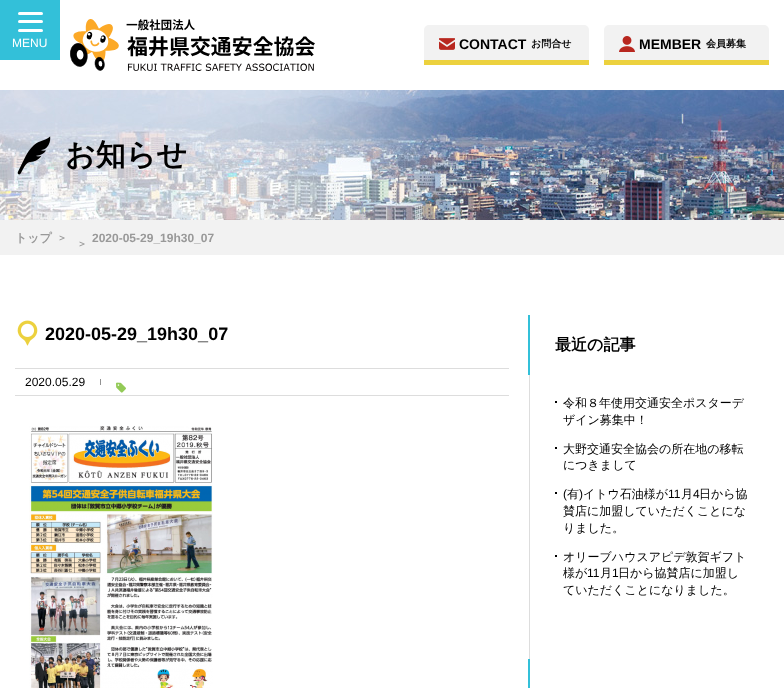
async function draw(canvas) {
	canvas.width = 784;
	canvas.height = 688;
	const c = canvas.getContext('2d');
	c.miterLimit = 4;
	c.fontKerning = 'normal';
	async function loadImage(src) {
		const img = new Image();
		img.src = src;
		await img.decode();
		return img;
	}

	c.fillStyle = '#fff';
	c.fillRect(0, 0, 784, 688);
	c.fillStyle = '#33c0d9';
	c.fillRect(0, 0, 60, 60);
	c.fillStyle = '#fff';
	c.beginPath();
	c.roundRect(18, 12, 25, 3, 1.5);
	c.fill();
	c.beginPath();
	c.roundRect(18, 20, 25, 3, 1.5);
	c.fill();
	c.beginPath();
	c.roundRect(18, 29, 25, 3, 1.5);
	c.fill();
	c.font = '12px Liberation Sans';
	c.fillText('MENU', 12, 47);
	c.drawImage(await loadImage('img1.png'), 70, 19, 245, 52);
	c.fillStyle = '#f2f2f2';
	c.beginPath();
	c.roundRect(424, 25, 165, 40, [5, 5, 0, 0]);
	c.fill();
	c.fillStyle = '#ecd13e';
	c.fillRect(424, 60, 165, 5);
	c.drawImage(await loadImage('img2.png'), 439, 38, 16, 12);
	c.font = 'bold 14px Liberation Sans';
	c.fillStyle = '#000';
	c.fillText('CONTACT', 459, 49);
	c.font = 'bold 10px WenQuanYi Zen Hei';
	c.fillText('お問合せ', 531, 47);
	c.fillStyle = '#f2f2f2';
	c.beginPath();
	c.roundRect(604, 25, 165, 40, [5, 5, 0, 0]);
	c.fill();
	c.fillStyle = '#ecd13e';
	c.fillRect(604, 60, 165, 5);
	c.drawImage(await loadImage('img3.png'), 619, 36, 16, 16);
	c.font = 'bold 14px Liberation Sans';
	c.fillStyle = '#000';
	c.fillText('MEMBER', 639, 49);
	c.font = 'bold 10px WenQuanYi Zen Hei';
	c.fillText('会員募集', 706, 47);
	c.drawImage(await loadImage('img4.png'), 0, 90, 784, 130);
	c.drawImage(await loadImage('img5.png'), 17, 136, 34, 39);
	c.font = 'bold 30px WenQuanYi Zen Hei';
	c.fillText('お知らせ', 65, 165);
	c.fillStyle = '#f2f2f2';
	c.fillRect(0, 220, 784, 35);
	c.font = 'bold 12px WenQuanYi Zen Hei';
	c.fillStyle = '#999';
	c.fillText('トップ', 15, 242);
	c.font = 'bold 10px WenQuanYi Zen Hei';
	c.fillText('＞', 57, 241);
	c.fillText('＞', 77, 247);
	c.font = 'bold 12px Liberation Sans';
	c.fillText('2020-05-29_19h30_07', 92, 242);
	c.drawImage(await loadImage('img6.png'), 17, 320, 21, 26);
	c.font = 'bold 18px Liberation Sans';
	c.fillStyle = '#000';
	c.fillText('2020-05-29_19h30_07', 45, 340);
	c.fillStyle = '#ddd';
	c.fillRect(15, 368, 494, 1);
	c.fillRect(15, 395, 494, 1);
	c.font = '12px Liberation Sans';
	c.fillStyle = '#000';
	c.fillText('2020.05.29', 25, 386);
	c.fillStyle = '#929292';
	c.fillRect(100, 379, 1, 6);
	c.drawImage(await loadImage('img7.png'), 116, 382, 10, 11);
	c.drawImage(await loadImage('img8.png'), 29, 426, 184, 262);
	c.fillStyle = '#ddd';
	c.fillRect(529, 375, 1, 284);
	c.fillStyle = '#33c0d9';
	c.fillRect(528, 315, 2, 60);
	c.font = 'bold 16px WenQuanYi Zen Hei';
	c.fillStyle = '#000';
	c.fillText('最近の記事', 555, 350);
	c.fillRect(555, 401, 2, 2);
	c.font = '500 12px WenQuanYi Zen Hei';
	c.fillText('令和８年使用交通安全ポスターデ', 563, 407);
	c.fillText('ザイン募集中！', 563, 424);
	c.fillRect(555, 447, 2, 2);
	c.fillText('大野交通安全協会の所在地の移転', 563, 453);
	c.fillText('につきまして', 563, 469);
	c.fillRect(555, 492, 2, 2);
	c.font = '12px Liberation Sans';
	c.fillText('(', 563, 498);
	c.font = '500 12px WenQuanYi Zen Hei';
	c.fillText('有', 567, 498);
	c.font = '12px Liberation Sans';
	c.fillText(')', 579, 498);
	c.font = '500 12px WenQuanYi Zen Hei';
	c.fillText('イトウ石油様が', 583, 498);
	c.font = '12px Liberation Sans';
	c.fillText('11', 668, 498);
	c.font = '500 12px WenQuanYi Zen Hei';
	c.fillText('月', 681, 498);
	c.font = '12px Liberation Sans';
	c.fillText('4', 693, 498);
	c.font = '500 12px WenQuanYi Zen Hei';
	for (const [text, x, y] of [
		['日から協', 699, 498],
		['賛店に加盟していただくことにな', 563, 515],
		['りました。', 563, 532],
	]) {
		c.fillText(text, x, y);
	}
	c.fillRect(555, 555, 2, 2);
	c.fillText('オリーブハウスアピデ敦賀ギフト', 563, 561);
	c.fillText('様が', 563, 577);
	c.font = '12px Liberation Sans';
	c.fillText('11', 587, 577);
	c.font = '500 12px WenQuanYi Zen Hei';
	c.fillText('月', 600, 577);
	c.font = '12px Liberation Sans';
	c.fillText('1', 612, 577);
	c.font = '500 12px WenQuanYi Zen Hei';
	c.fillText('日から協賛店に加盟し', 618, 577);
	c.fillText('ていただくことになりました。', 563, 594);
	c.fillStyle = '#33c0d9';
	c.fillRect(528, 659, 2, 29);
}

draw(document.querySelector('canvas'));
